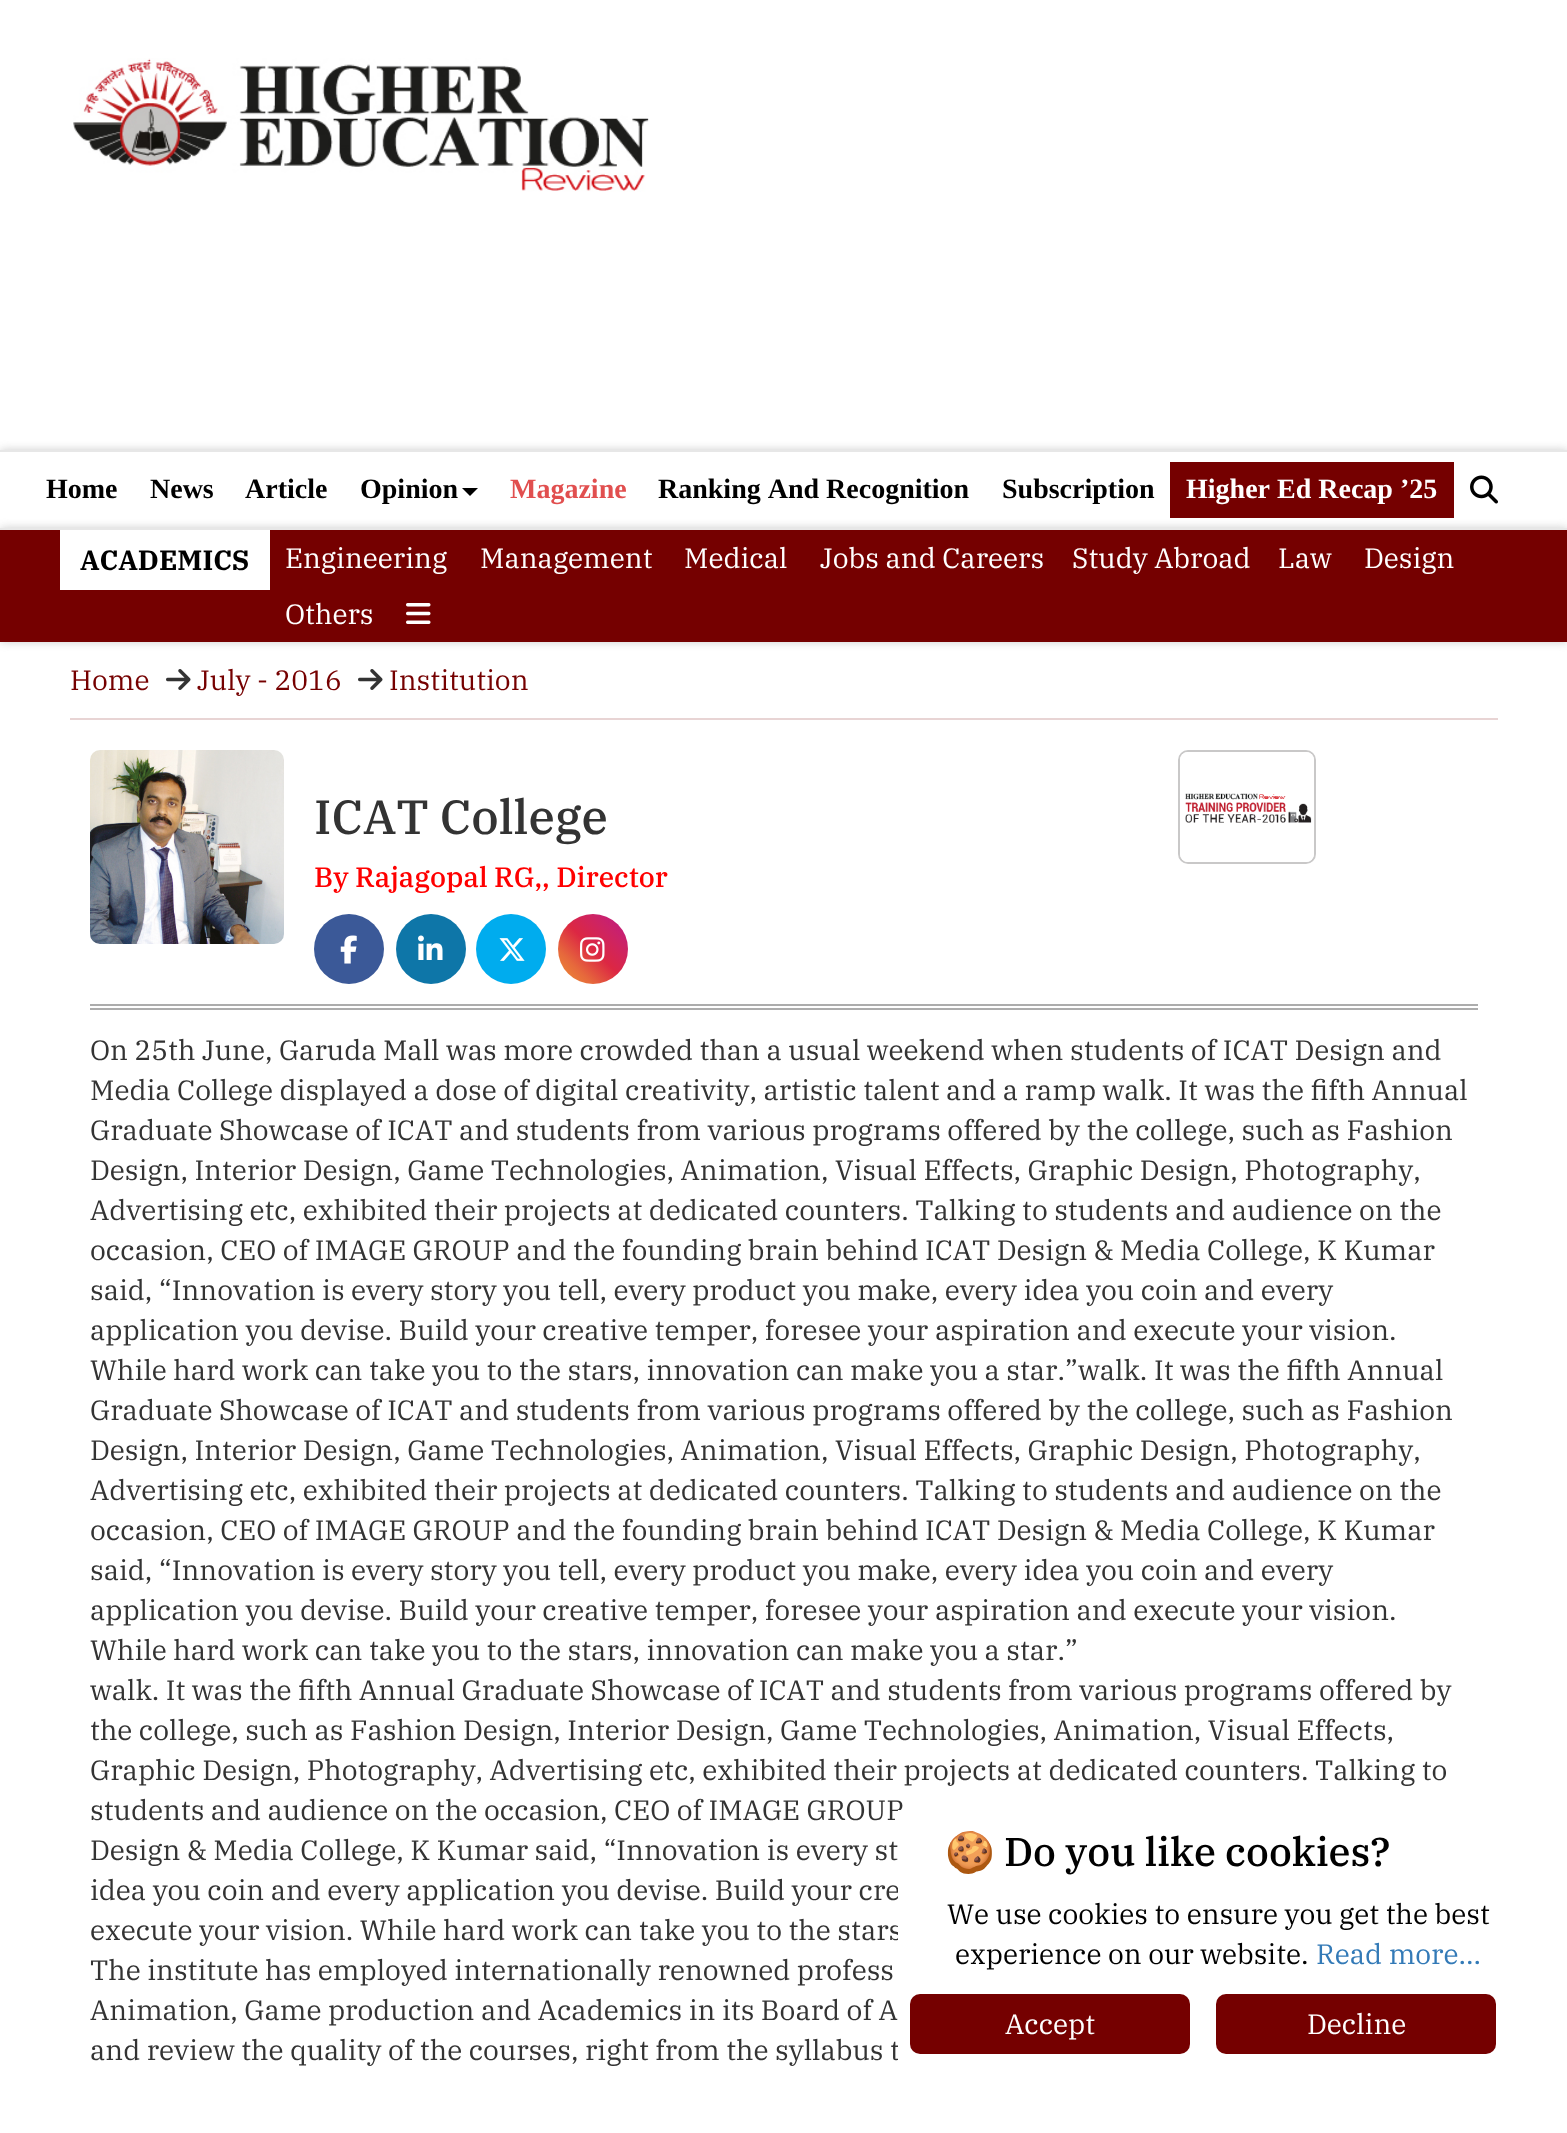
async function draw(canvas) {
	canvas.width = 1567;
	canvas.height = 2133;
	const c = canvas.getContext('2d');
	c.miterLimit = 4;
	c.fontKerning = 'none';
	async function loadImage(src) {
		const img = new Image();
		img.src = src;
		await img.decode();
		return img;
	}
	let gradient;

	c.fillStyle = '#fff';
	c.fillRect(0, 0, 1567, 2133);
	c.drawImage(await loadImage('img1.png'), 73, 58, 576, 134);
	c.save();
	c.beginPath();
	c.rect(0, 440, 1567, 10);
	c.clip();
	c.fillStyle = '#ccc';
	c.filter = 'blur(5px)';
	c.beginPath();
	c.rect(0, 450, 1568, 78);
	c.fill();
	c.filter = 'none';
	c.restore();
	c.fillStyle = '#e7e7e7';
	c.fillRect(0, 450, 1567, 2);
	c.font = 'bold 28px Liberation Serif';
	c.fillStyle = '#000';
	for (const [text, x, y] of [
		['Home', 46, 498],
		['News', 150, 498],
		['Article', 245, 498],
		['Opinion', 360, 498],
	]) {
		c.fillText(text, x, y);
	}
	c.beginPath();
	c.moveTo(462, 488);
	c.lineTo(478, 488);
	c.lineTo(470, 496);
	c.closePath();
	c.fill();
	c.fillStyle = '#e14f4f';
	c.fillText('Magazine', 510, 498);
	c.fillStyle = '#000';
	c.fillText('Ranking And Recognition', 658, 498);
	c.fillText('Subscription', 1002, 498);
	c.fillStyle = '#750000';
	c.fillRect(1170, 462, 284, 56);
	c.fillStyle = '#fff';
	c.fillText('Higher Ed Recap ’25', 1186, 498);
	c.drawImage(await loadImage('img2.png'), 1470, 475, 28, 29);
	c.fillStyle = '#ccc';
	c.filter = 'blur(5px)';
	c.beginPath();
	c.rect(0, 528, 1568, 114);
	c.fill();
	c.filter = 'none';
	for (const [x, y, w, h, color] of [
		[0, 530, 1567, 112, '#750000'],
		[0, 528, 1567, 2, '#e7e7e7'],
		[60, 530, 210, 60, '#fff'],
	]) {
		c.fillStyle = color;
		c.fillRect(x, y, w, h);
	}
	c.font = 'bold 28px IBM Plex Serif';
	c.fillStyle = '#000';
	c.fillText('ACADEMICS', 80, 570);
	c.font = '28px IBM Plex Serif';
	c.fillStyle = '#fff';
	for (const [text, x, y] of [
		['Engineering', 285, 568],
		['Management', 480, 568],
		['Medical', 684, 568],
		['Jobs and Careers', 820, 568],
		['Study Abroad', 1072, 568],
		['Law', 1278, 568],
		['Design', 1364, 568],
		['Others', 285, 624],
	]) {
		c.fillText(text, x, y);
	}
	c.drawImage(await loadImage('img3.png'), 406, 603, 25, 21);
	c.fillStyle = '#e8d4d4';
	c.fillRect(70, 718, 1428, 2);
	c.fillStyle = '#750000';
	c.fillText('Home', 70, 690);
	c.drawImage(await loadImage('img4.png'), 166, 669, 25, 21);
	c.fillText('July - 2016', 197, 690);
	c.drawImage(await loadImage('img4.png'), 358, 669, 25, 21);
	c.fillText('Institution', 389, 690);
	c.fillStyle = '#acacac';
	c.fillRect(90, 1004, 1388, 2);
	c.fillRect(90, 1008, 1388, 2);
	c.drawImage(await loadImage('img5.png'), 90, 750, 194, 194);
	c.font = '500 48px IBM Plex Serif';
	c.fillStyle = '#333';
	c.fillText('ICAT College', 314, 834);
	c.font = '500 28px IBM Plex Serif';
	c.fillStyle = '#f00';
	c.fillText('By Rajagopal RG,, Director', 314, 887);
	c.fillStyle = '#3b5998';
	c.beginPath();
	c.arc(349, 949, 35, 0, 2 * Math.PI);
	c.fill();
	c.drawImage(await loadImage('img6.png'), 340, 935, 17, 29);
	c.fillStyle = '#0e76a8';
	c.beginPath();
	c.arc(431, 949, 35, 0, 2 * Math.PI);
	c.fill();
	c.drawImage(await loadImage('img7.png'), 418, 935, 25, 25);
	c.fillStyle = '#00acee';
	c.beginPath();
	c.arc(511, 949, 35, 0, 2 * Math.PI);
	c.fill();
	c.drawImage(await loadImage('img8.png'), 499, 938, 26, 23);
	gradient = c.createLinearGradient(558, 984, 628, 914);
	gradient.addColorStop(0, '#f09433');
	gradient.addColorStop(0.25, '#e6683c');
	gradient.addColorStop(0.5, '#dc2743');
	gradient.addColorStop(0.75, '#cc2366');
	gradient.addColorStop(1, '#bc1888');
	c.fillStyle = gradient;
	c.beginPath();
	c.arc(593, 949, 35, 0, 2 * Math.PI);
	c.fill();
	c.drawImage(await loadImage('img9.png'), 580, 937, 25, 25);
	c.beginPath();
	c.roundRect(1179, 751, 136, 112, 9);
	c.strokeStyle = '#c9c8c8';
	c.lineWidth = 2;
	c.stroke();
	c.drawImage(await loadImage('img10.png'), 1180, 752, 134, 110);
	c.font = '28px IBM Plex Serif';
	c.fillStyle = '#333';
	for (const [text, x, y] of [
		['On 25th June, Garuda Mall was more crowded than a usual weekend when students of ICAT Design and', 90, 1060],
		['Media College displayed a dose of digital creativity, artistic talent and a ramp walk. It was the fifth Annual', 90, 1100],
		['Graduate Showcase of ICAT and students from various programs offered by the college, such as Fashion', 90, 1140],
		['Design, Interior Design, Game Technologies, Animation, Visual Effects, Graphic Design, Photography,', 90, 1180],
		['Advertising etc, exhibited their projects at dedicated counters. Talking to students and audience on the', 90, 1220],
		['occasion, CEO of IMAGE GROUP and the founding brain behind ICAT Design & Media College, K Kumar', 90, 1260],
		['said, “Innovation is every story you tell, every product you make, every idea you coin and every', 90, 1300],
		['application you devise. Build your creative temper, foresee your', 90, 1340],
		['aspiration and execute your vision.', 935, 1340],
		['While hard work can take you to the stars, innovation can make you a star.”walk.', 90, 1380],
		['It was the fifth Annual', 1154, 1380],
		['Graduate Showcase of ICAT and students from various programs offered by the college, such as Fashion', 90, 1420],
		['Design, Interior Design, Game Technologies, Animation, Visual Effects, Graphic Design, Photography,', 90, 1460],
		['Advertising etc, exhibited their projects at dedicated counters. Talking to students and audience on the', 90, 1500],
		['occasion, CEO of IMAGE GROUP and the founding brain behind ICAT Design & Media College, K Kumar', 90, 1540],
		['said, “Innovation is every story you tell, every product you make, every idea you coin and every', 90, 1580],
		['application you devise. Build your creative temper, foresee your', 90, 1620],
		['aspiration and execute your vision.', 935, 1620],
		['While hard work can take you to the stars, innovation can make you a star.”', 90, 1660],
		['walk. It was the fifth Annual Graduate Showcase of ICAT and students from various programs offered by', 90, 1700],
		['the college, such as Fashion Design, Interior Design, Game Technologies, Animation, Visual Effects,', 90, 1740],
		['Graphic Design, Photography, Advertising etc, exhibited their projects at dedicated counters. Talking to', 90, 1780],
		['students and audience on the occasion, CEO of IMAGE GROUP', 90, 1820],
		['Design & Media College, K Kumar said, “Innovation is every st', 90, 1860],
		['idea you coin and every application you devise. Build your cre', 90, 1900],
		['execute your vision. While hard work can take you to the stars', 90, 1940],
		['The institute has employed internationally renowned profess', 90, 1980],
		['Animation, Game production and Academics in its Board of A', 90, 2020],
		['and review the quality of the courses, right from the syllabus t', 90, 2060],
	]) {
		c.fillText(text, x, y);
	}
	c.fillStyle = '#fff';
	c.fillRect(898, 1810, 3, 250);
	c.font = '40px Noto Color Emoji';
	c.fillStyle = '#000';
	c.fillText('🍪', 945, 1866);
	c.font = '500 40px IBM Plex Serif';
	c.fillText('Do you like cookies?', 1004, 1866);
	c.font = '28px IBM Plex Serif';
	c.fillText('We use cookies to ensure you get the best', 947, 1924);
	c.fillText('experience on our website.', 955, 1964);
	c.fillStyle = '#337ab7';
	c.fillText('Read more...', 1316, 1964);
	c.fillStyle = '#750000';
	c.beginPath();
	c.roundRect(910, 1994, 280, 60, 10);
	c.fill();
	c.fillStyle = '#fff';
	c.fillText('Accept', 1005, 2034);
	c.fillStyle = '#750000';
	c.beginPath();
	c.roundRect(1216, 1994, 280, 60, 10);
	c.fill();
	c.fillStyle = '#fff';
	c.fillText('Decline', 1307, 2034);
}

draw(document.querySelector('canvas'));
